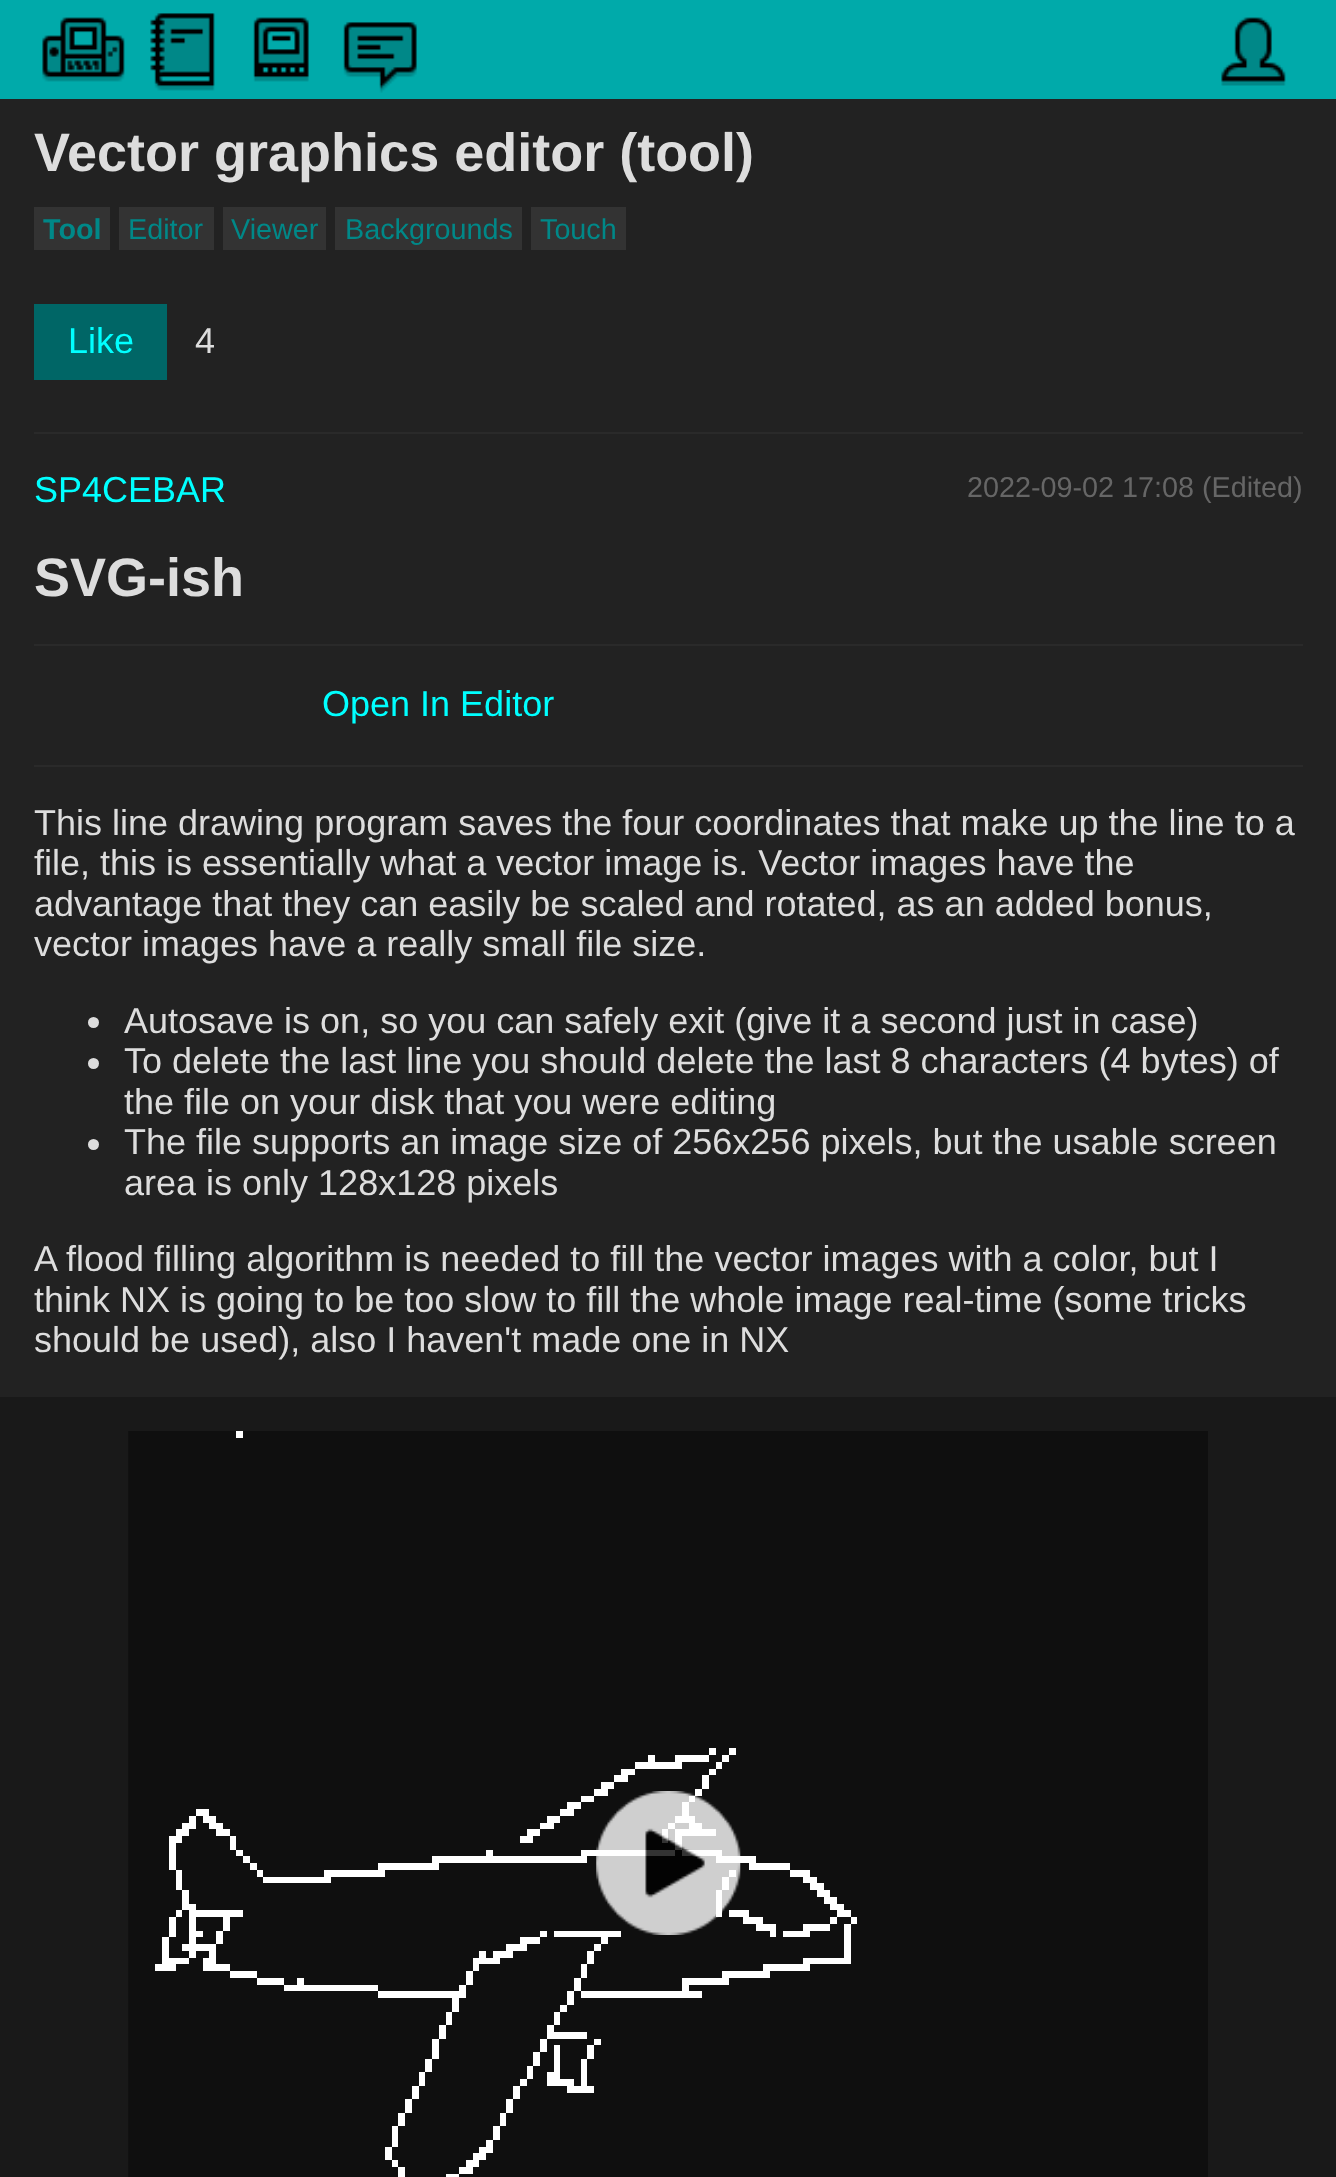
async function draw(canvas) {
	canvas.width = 1336;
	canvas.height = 2177;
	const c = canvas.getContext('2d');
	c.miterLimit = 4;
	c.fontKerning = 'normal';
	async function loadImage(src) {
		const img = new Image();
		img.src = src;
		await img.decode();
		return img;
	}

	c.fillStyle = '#222';
	c.fillRect(0, 0, 1336, 2177);
	c.fillStyle = '#0aa';
	c.fillRect(0, 0, 1336, 99);
	c.drawImage(await loadImage('img1.png'), 42, 17, 83, 65);
	c.drawImage(await loadImage('img2.png'), 150, 13, 65, 78);
	c.drawImage(await loadImage('img3.png'), 253, 17, 56, 65);
	c.drawImage(await loadImage('img4.png'), 343, 22, 74, 71);
	c.drawImage(await loadImage('img5.png'), 1221, 17, 65, 69);
	c.font = 'bold 54px Liberation Sans';
	c.fillStyle = '#ddd';
	c.fillText('Vector graphics editor (tool)', 34, 171);
	c.fillStyle = '#333';
	c.fillRect(34, 207, 76, 43);
	c.font = 'bold 28.75px Liberation Sans';
	c.fillStyle = '#088';
	c.fillText('Tool', 43, 239);
	c.fillStyle = '#333';
	c.fillRect(119, 207, 95, 43);
	c.font = '28.75px Liberation Sans';
	c.fillStyle = '#088';
	c.fillText('Editor', 128, 239);
	c.fillStyle = '#333';
	c.fillRect(223, 207, 103, 43);
	c.fillStyle = '#088';
	c.fillText('Viewer', 231, 239);
	c.fillStyle = '#333';
	c.fillRect(335, 207, 187, 43);
	c.fillStyle = '#088';
	c.fillText('Backgrounds', 345, 239);
	c.fillStyle = '#333';
	c.fillRect(531, 207, 95, 43);
	c.fillStyle = '#088';
	c.fillText('Touch', 540, 239);
	c.fillStyle = '#066';
	c.fillRect(34, 304, 133, 76);
	c.font = '36px Liberation Sans';
	c.fillStyle = '#0ff';
	c.fillText('Like', 68, 353);
	c.fillStyle = '#ddd';
	c.fillText('4', 195, 353);
	c.fillStyle = '#2a2a2a';
	c.fillRect(34, 432, 1269, 2);
	c.fillStyle = '#0ff';
	c.fillText('SP4CEBAR', 34, 502);
	c.font = '28.75px Liberation Sans';
	c.fillStyle = '#666';
	c.fillText('2022-09-02 17:08 (Edited)', 967, 497);
	c.font = 'bold 54px Liberation Sans';
	c.fillStyle = '#ddd';
	c.fillText('SVG-ish', 34, 596);
	c.fillStyle = '#2a2a2a';
	c.fillRect(34, 644, 1269, 2);
	c.font = '36px Liberation Sans';
	c.fillStyle = '#0ff';
	c.fillText('Open In Editor', 322, 716);
	c.fillStyle = '#2a2a2a';
	c.fillRect(34, 765, 1269, 2);
	c.fillStyle = '#ddd';
	for (const [text, x, y] of [
		['This line drawing program saves the four coordinates that make up the line to a', 34, 835],
		['file, this is essentially what a vector image is. Vector images have the', 34, 875],
		['advantage that they can easily be scaled and rotated, as an added bonus,', 34, 916],
		['vector images have a really small file size.', 34, 956],
	]) {
		c.fillText(text, x, y);
	}
	c.beginPath();
	c.arc(93.5, 1022.5, 5.5, 0, 2 * Math.PI);
	c.fill();
	c.fillText('Autosave is on, so you can safely exit (give it a second just in case)', 124, 1033);
	c.beginPath();
	c.arc(93.5, 1063.5, 5.5, 0, 2 * Math.PI);
	c.fill();
	c.fillText('To delete the last line you should delete the last 8 characters (4 bytes) of', 124, 1073);
	c.fillText('the file on your disk that you were editing', 124, 1114);
	c.beginPath();
	c.arc(93.5, 1144.5, 5.5, 0, 2 * Math.PI);
	c.fill();
	for (const [text, x, y] of [
		['The file supports an image size of 256x256 pixels, but the usable screen', 124, 1154],
		['area is only 128x128 pixels', 124, 1195],
		['A flood filling algorithm is needed to fill the vector images with a color, but I', 34, 1271],
		['think NX is going to be too slow to fill the whole image real-time (some tricks', 34, 1312],
		['should be used), also I haven\'t made one in NX', 34, 1352],
	]) {
		c.fillText(text, x, y);
	}
	c.fillStyle = '#191919';
	c.fillRect(0, 1397, 1336, 780);
	c.drawImage(await loadImage('img6.png'), 128, 1431, 1080, 746);
	c.drawImage(await loadImage('img7.png'), 596, 1791, 145, 144);
}

draw(document.querySelector('canvas'));
